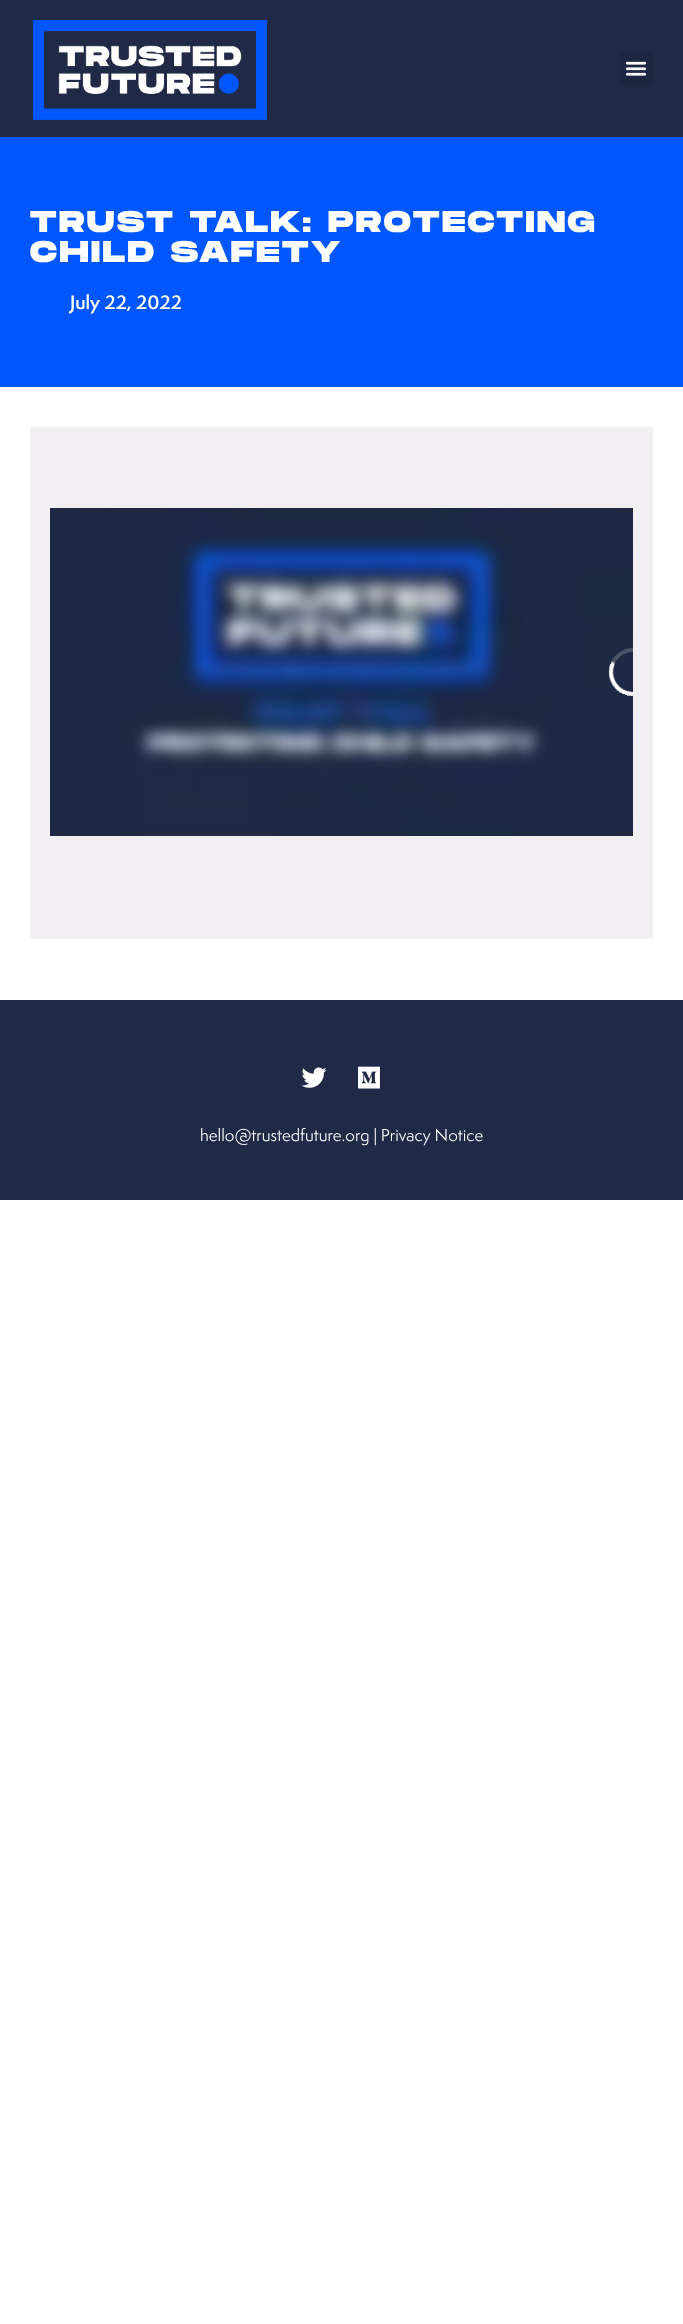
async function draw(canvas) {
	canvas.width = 683;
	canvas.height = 2324;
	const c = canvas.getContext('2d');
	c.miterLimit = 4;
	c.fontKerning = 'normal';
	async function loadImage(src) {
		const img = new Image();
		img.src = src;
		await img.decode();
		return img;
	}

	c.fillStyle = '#fff';
	c.fillRect(0, 0, 683, 2324);
	c.fillStyle = '#202945';
	c.fillRect(0, 0, 683, 137);
	c.drawImage(await loadImage('img1.png'), 32, 20, 236, 101);
	c.fillStyle = '#1e2742';
	c.beginPath();
	c.roundRect(620, 52, 33, 33, 3);
	c.fill();
	c.drawImage(await loadImage('img2.png'), 625, 61, 22, 15);
	c.fillStyle = '#0057ff';
	c.fillRect(0, 137, 683, 250);
	c.letterSpacing = '2.5px';
	c.font = '800 30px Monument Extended';
	c.fillStyle = '#fff';
	c.fillText('TRUST TALK: PROTECTING', 30, 232);
	c.fillText('CHILD SAFETY', 30, 262);
	c.letterSpacing = '0px';
	c.font = '600 18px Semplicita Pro';
	c.fillText('July 22, 2022', 70, 309);
	c.fillStyle = '#f1eff2';
	c.fillRect(30, 427, 623, 512);
	c.drawImage(await loadImage('img3.png'), 50, 508, 583, 328);
	c.fillStyle = '#202945';
	c.fillRect(0, 1000, 683, 200);
	c.drawImage(await loadImage('img4.png'), 301, 1067, 26, 21);
	c.drawImage(await loadImage('img5.png'), 358, 1066, 22, 23);
	c.font = '16px SemplicitaPro';
	c.fillStyle = '#fff';
	c.fillText('hello@trustedfuture.org | Privacy Notice', 200, 1141);
}

draw(document.querySelector('canvas'));
